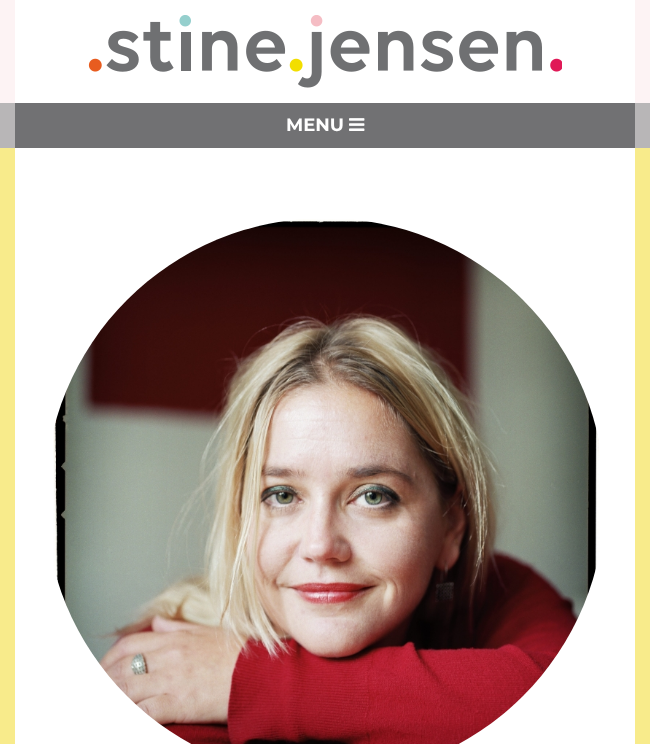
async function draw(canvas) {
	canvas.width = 650;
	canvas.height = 744;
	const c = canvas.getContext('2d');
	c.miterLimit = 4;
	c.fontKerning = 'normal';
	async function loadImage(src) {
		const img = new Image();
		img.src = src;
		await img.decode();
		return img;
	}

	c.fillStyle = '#fdf3f4';
	c.fillRect(0, 0, 650, 744);
	c.fillStyle = '#fff';
	c.fillRect(15, 0, 620, 103);
	c.drawImage(await loadImage('img1.png'), 88, 15, 474, 73);
	c.fillStyle = '#b8b6b7';
	c.fillRect(0, 103, 650, 45);
	c.fillStyle = '#717173';
	c.fillRect(15, 103, 620, 45);
	c.font = '100 18px Montserrat';
	c.fillStyle = '#fff';
	c.fillText('MENU', 286, 131);
	c.drawImage(await loadImage('img2.png'), 349, 118, 16, 13);
	c.fillStyle = '#f8eb8b';
	c.fillRect(0, 148, 650, 596);
	c.fillStyle = '#fff';
	c.fillRect(15, 148, 620, 596);
	c.drawImage(await loadImage('img3.png'), 53, 219, 547, 525);
}

draw(document.querySelector('canvas'));
